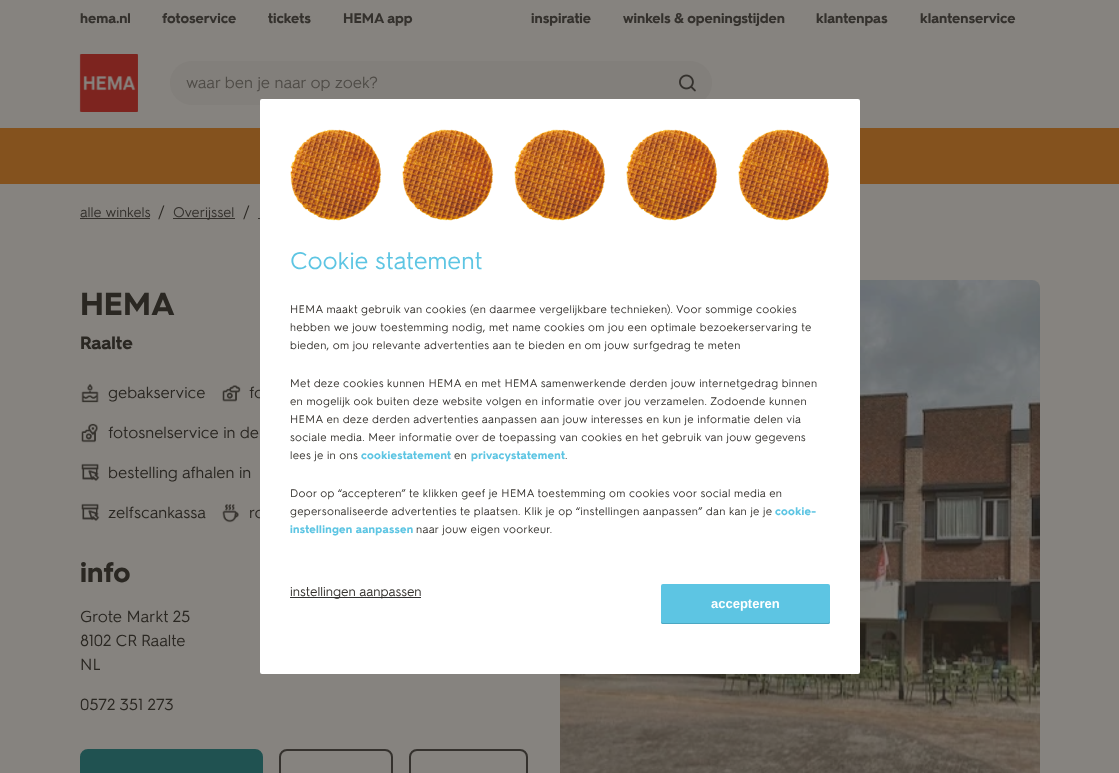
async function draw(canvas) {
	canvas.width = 1119;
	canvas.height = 773;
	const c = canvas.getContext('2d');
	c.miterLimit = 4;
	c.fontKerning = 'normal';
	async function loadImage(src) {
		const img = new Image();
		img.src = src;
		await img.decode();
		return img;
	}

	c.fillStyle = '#86837f';
	c.fillRect(0, 0, 1119, 773);
	c.font = 'bold 14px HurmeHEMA';
	c.fillStyle = '#34312d';
	for (const [text, x, y] of [
		['hema.nl', 80, 23],
		['fotoservice', 162, 23],
		['tickets', 268, 23],
		['HEMA app', 343, 23],
		['inspiratie', 531, 23],
		['winkels & openingstijden', 623, 23],
		['klantenpas', 816, 23],
		['klantenservice', 920, 23],
	]) {
		c.fillText(text, x, y);
	}
	c.drawImage(await loadImage('img1.png'), 79, 54, 59, 58);
	c.fillStyle = '#827f7b';
	c.beginPath();
	c.roundRect(170, 61, 542, 44, 22);
	c.fill();
	c.font = '16px HurmeHEMA';
	c.fillStyle = '#4f4c47';
	c.fillText('waar ben je naar op zoek?', 186, 88);
	c.drawImage(await loadImage('img2.png'), 679, 74, 17, 18);
	c.fillStyle = '#84521e';
	c.fillRect(0, 128, 1119, 56);
	c.font = '14px HurmeHEMA';
	c.fillStyle = '#34312d';
	c.fillText('alle winkels', 80, 217);
	c.fillRect(80, 218, 70, 1);
	c.font = '16px HurmeHEMA';
	c.fillStyle = '#2a2722';
	c.fillText('/', 158, 217);
	c.fillStyle = '#34312d';
	c.fillRect(173, 218, 62, 1);
	c.font = '14px HurmeHEMA';
	c.fillText('Overijssel', 173, 217);
	c.font = '16px HurmeHEMA';
	c.fillStyle = '#2a2722';
	c.fillText('/', 243, 217);
	c.fillStyle = '#34312d';
	c.fillRect(258, 218, 2, 1);
	c.font = 'bold 32px HurmeHEMA';
	c.fillStyle = '#2a2722';
	c.fillText('HEMA', 80, 315);
	c.font = 'bold 18px HurmeHEMA';
	c.fillText('Raalte', 80, 349);
	c.drawImage(await loadImage('img3.png'), 81, 384, 18, 19);
	c.font = '16px HurmeHEMA';
	c.fillText('gebakservice', 108, 398);
	c.drawImage(await loadImage('img4.png'), 222, 385, 19, 17);
	c.fillText('fo', 249, 398);
	c.drawImage(await loadImage('img5.png'), 81, 423, 17, 20);
	c.fillText('fotosnelservice in de', 108, 438);
	c.drawImage(await loadImage('img6.png'), 81, 463, 19, 18);
	c.fillText('bestelling afhalen in', 108, 478);
	c.drawImage(await loadImage('img6.png'), 81, 503, 19, 18);
	c.fillText('zelfscankassa', 108, 518);
	c.drawImage(await loadImage('img7.png'), 222, 504, 17, 19);
	c.fillText('ro', 249, 518);
	c.font = 'bold 28px HurmeHEMA';
	c.fillText('info', 80, 582);
	c.font = '16px HurmeHEMA';
	for (const [text, x, y] of [
		['Grote Markt 25', 80, 622],
		['8102 CR', 80, 646],
		['Raalte', 141, 646],
		['NL', 80, 670],
		['0572 351 273', 80, 710],
	]) {
		c.fillText(text, x, y);
	}
	c.fillStyle = '#205251';
	c.beginPath();
	c.roundRect(81, 750, 181, 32, 7);
	c.fill();
	c.strokeStyle = '#205251';
	c.lineWidth = 2;
	c.stroke();
	c.beginPath();
	c.roundRect(280, 750, 112, 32, 7);
	c.strokeStyle = '#34312d';
	c.stroke();
	c.beginPath();
	c.roundRect(410, 750, 117, 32, 7);
	c.stroke();
	c.drawImage(await loadImage('img8.png'), 560, 280, 480, 493);
	c.fillStyle = '#fff';
	c.beginPath();
	c.roundRect(260, 99, 600, 575, 2);
	c.fill();
	c.drawImage(await loadImage('img9.png'), 290, 129, 92, 92);
	c.drawImage(await loadImage('img9.png'), 402, 129, 92, 92);
	c.drawImage(await loadImage('img9.png'), 514, 129, 92, 92);
	c.drawImage(await loadImage('img9.png'), 626, 129, 92, 92);
	c.drawImage(await loadImage('img9.png'), 738, 129, 92, 92);
	c.font = '24px HurmeHEMA';
	c.fillStyle = '#5dc5e3';
	c.fillText('Cookie statement', 290, 269);
	c.letterSpacing = '0.3px';
	c.font = '11px HurmeHEMA';
	c.fillStyle = '#34312d';
	for (const [text, x, y] of [
		['HEMA maakt gebruik van cookies (en daarmee vergelijkbare technieken). Voor sommige cookies', 290, 313],
		['hebben we jouw toestemming nodig, met name cookies om jou een optimale bezoekerservaring te', 290, 331],
		['bieden, om jou relevante advertenties aan te bieden en om jouw surfgedrag te meten', 290, 349],
		['Met deze cookies kunnen HEMA en met HEMA samenwerkende derden jouw internetgedrag binnen', 290, 387],
		['en mogelijk ook buiten deze website volgen en informatie over jou verzamelen. Zodoende kunnen', 290, 405],
		['HEMA en deze derden advertenties aanpassen aan jouw interesses en kun je informatie delen via', 290, 423],
		['sociale media. Meer informatie over de toepassing van cookies en het gebruik van jouw gegevens', 290, 441],
		['lees je in ons', 290, 459],
	]) {
		c.fillText(text, x, y);
	}
	c.font = 'bold 11px HurmeHEMA';
	c.fillStyle = '#5dc5e3';
	c.fillText('cookiestatement', 361, 459);
	c.font = '11px HurmeHEMA';
	c.fillStyle = '#34312d';
	c.fillText('en', 454, 459);
	c.font = 'bold 11px HurmeHEMA';
	c.fillStyle = '#5dc5e3';
	c.fillText('privacystatement', 471, 459);
	c.font = '11px HurmeHEMA';
	c.fillStyle = '#34312d';
	for (const [text, x, y] of [
		['.', 565, 459],
		['Door op “accepteren” te klikken geef je HEMA toestemming om cookies voor social media en', 290, 497],
		['gepersonaliseerde advertenties te plaatsen. Klik je op “instellingen aanpassen” dan kan je je', 290, 515],
	]) {
		c.fillText(text, x, y);
	}
	c.font = 'bold 11px HurmeHEMA';
	c.fillStyle = '#5dc5e3';
	c.fillText('cookie-', 775, 515);
	c.fillText('instellingen aanpassen', 290, 533);
	c.font = '11px HurmeHEMA';
	c.fillStyle = '#34312d';
	c.fillText('naar jouw eigen voorkeur.', 416, 533);
	c.fillStyle = '#323232';
	c.fillRect(290, 597, 131, 1);
	c.letterSpacing = '0px';
	c.font = '13px HurmeHEMA';
	c.fillStyle = '#34312d';
	c.fillText('instellingen aanpassen', 290, 596);
	c.fillStyle = '#5dc5e3';
	c.beginPath();
	c.roundRect(661, 584, 169, 40, 2);
	c.fill();
	c.fillStyle = '#4ba7c2';
	c.beginPath();
	c.moveTo(661, 621);
	c.bezierCurveTo(661, 622, 661, 624, 663, 624);
	c.lineTo(828, 624);
	c.bezierCurveTo(830, 624, 830, 622, 830, 621);
	c.bezierCurveTo(830, 622, 829, 623, 828, 623);
	c.lineTo(663, 623);
	c.bezierCurveTo(662, 623, 661, 622, 661, 621);
	c.closePath();
	c.fill();
	c.font = 'bold 13px Liberation Sans';
	c.fillStyle = '#fff';
	c.fillText('accepteren', 711, 608);
}

draw(document.querySelector('canvas'));
